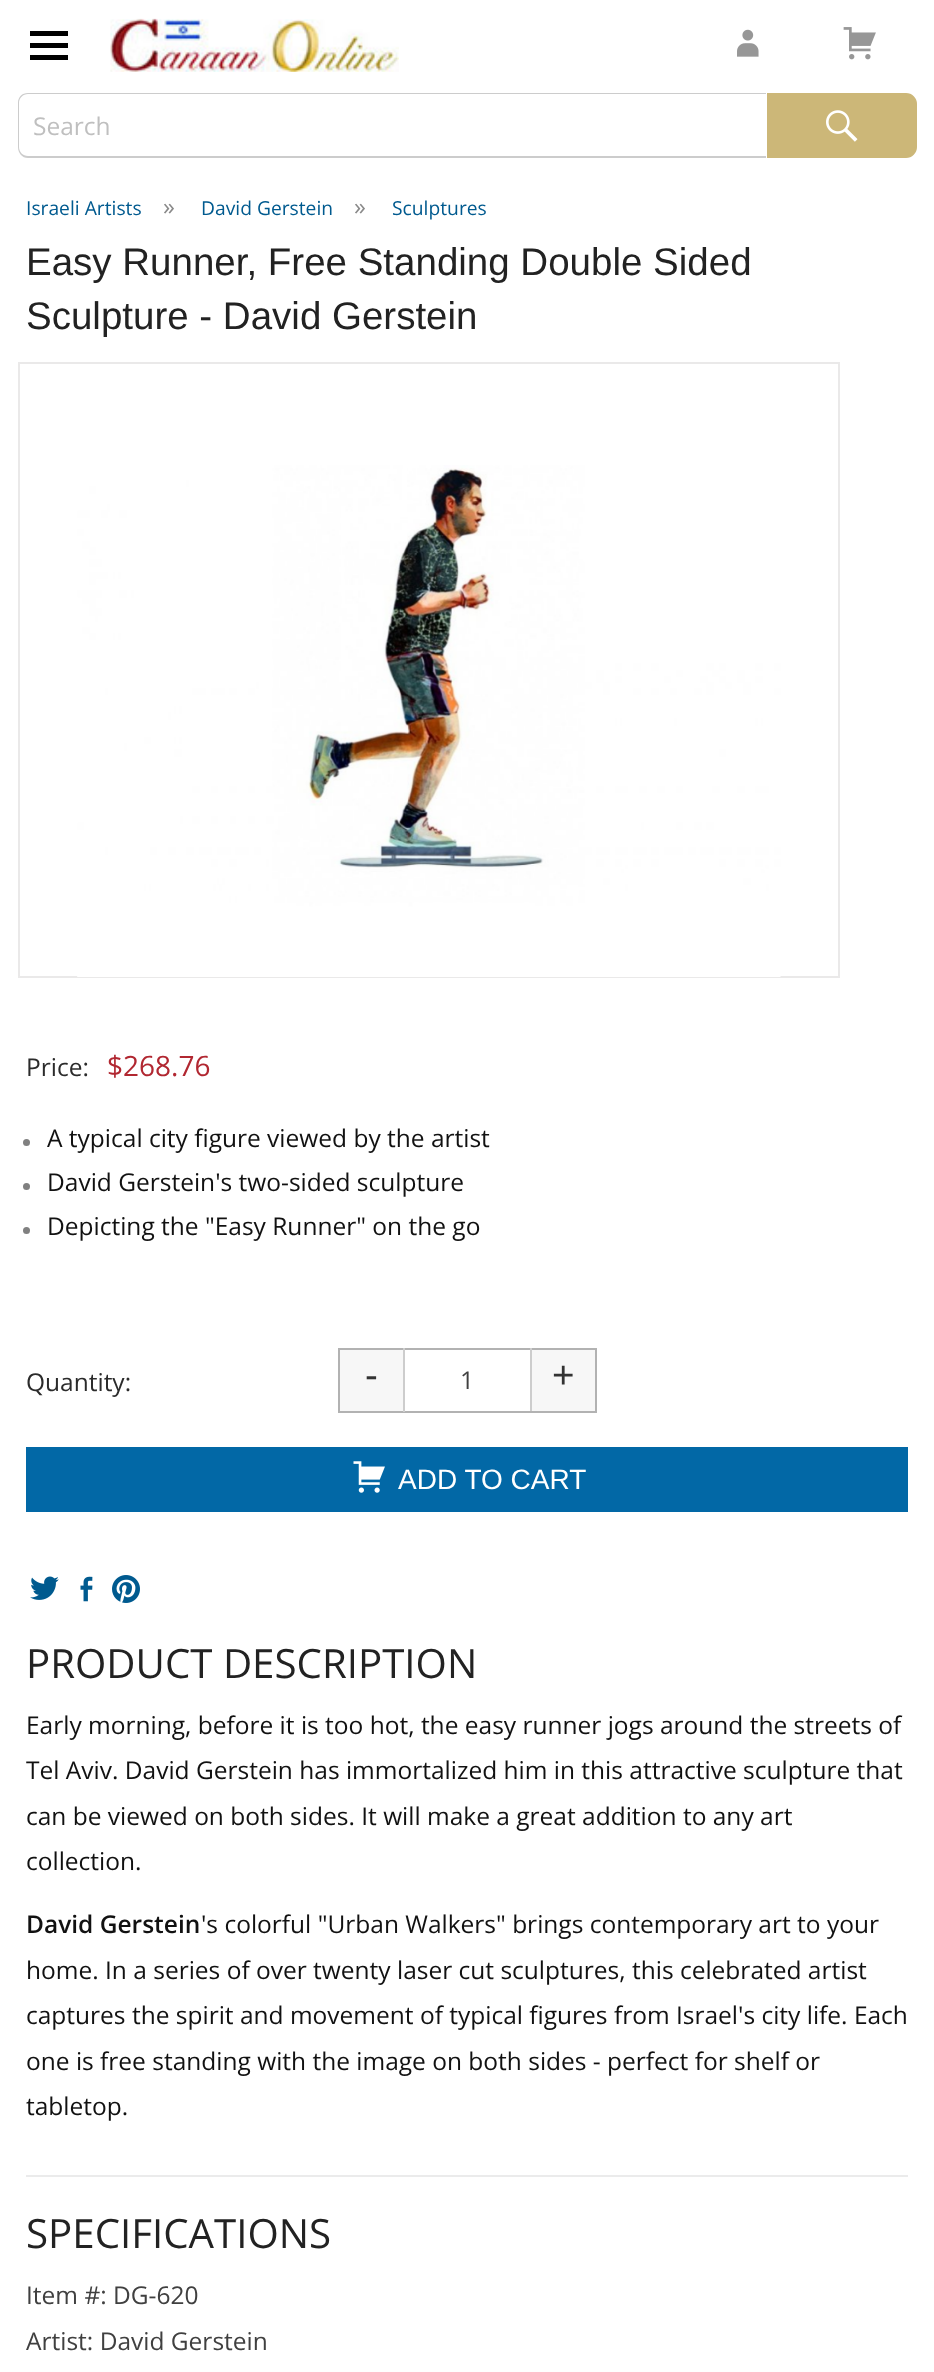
async function draw(canvas) {
	canvas.width = 934;
	canvas.height = 2372;
	const c = canvas.getContext('2d');
	c.miterLimit = 4;
	c.fontKerning = 'normal';
	async function loadImage(src) {
		const img = new Image();
		img.src = src;
		await img.decode();
		return img;
	}

	c.fillStyle = '#fff';
	c.fillRect(0, 0, 934, 2372);
	c.fillStyle = '#000';
	c.beginPath();
	c.moveTo(30, 60);
	c.lineTo(30, 55);
	c.lineTo(68, 55);
	c.lineTo(68, 60);
	c.closePath();
	c.moveTo(30, 31);
	c.lineTo(68, 31);
	c.lineTo(68, 36);
	c.lineTo(30, 36);
	c.closePath();
	c.moveTo(30, 48);
	c.lineTo(30, 43);
	c.lineTo(68, 43);
	c.lineTo(68, 48);
	c.closePath();
	c.fill();
	c.drawImage(await loadImage('img1.png'), 110, 18, 289, 54);
	c.drawImage(await loadImage('img2.png'), 737, 29, 22, 28);
	c.drawImage(await loadImage('img3.png'), 843, 27, 33, 33);
	c.fillStyle = '#ccc';
	c.beginPath();
	c.moveTo(28, 93);
	c.lineTo(766, 93);
	c.lineTo(766, 158);
	c.lineTo(28, 158);
	c.bezierCurveTo(22, 158, 18, 153, 18, 147);
	c.lineTo(18, 103);
	c.bezierCurveTo(18, 97, 22, 93, 28, 93);
	c.closePath();
	c.moveTo(28, 94);
	c.lineTo(766, 94);
	c.lineTo(766, 156);
	c.lineTo(28, 156);
	c.bezierCurveTo(23, 156, 19, 152, 19, 147);
	c.lineTo(19, 103);
	c.bezierCurveTo(19, 98, 23, 94, 28, 94);
	c.closePath();
	c.fill('evenodd');
	c.font = '24.5px Open Sans';
	c.fillStyle = '#bfbfbf';
	c.fillText('Search', 33, 135);
	c.fillStyle = '#ccb778';
	c.beginPath();
	c.roundRect(768, 94, 148, 63, [0, 10, 10, 0]);
	c.fill();
	c.strokeStyle = '#ccb778';
	c.lineWidth = 2;
	c.stroke();
	c.drawImage(await loadImage('img4.png'), 826, 110, 32, 32);
	c.font = '19.25px Open Sans';
	c.fillStyle = '#005a8f';
	c.fillText('Israeli Artists', 26, 215);
	c.font = '24px Open Sans';
	c.fillStyle = '#8a8a8a';
	c.fillText('»', 163, 215);
	c.font = '19.25px Open Sans';
	c.fillStyle = '#005a8f';
	c.fillText('David Gerstein', 201, 215);
	c.font = '24px Open Sans';
	c.fillStyle = '#8a8a8a';
	c.fillText('»', 354, 215);
	c.font = '19.25px Open Sans';
	c.fillStyle = '#005a8f';
	c.fillText('Sculptures', 392, 215);
	c.font = '38.5px Liberation Sans';
	c.fillStyle = '#222';
	c.fillText('Easy Runner, Free Standing Double Sided', 26, 275);
	c.fillText('Sculpture - David Gerstein', 26, 329);
	c.strokeStyle = '#eae9e9';
	c.strokeRect(19, 363, 820, 614);
	c.drawImage(await loadImage('img5.png'), 77, 465, 704, 512);
	c.font = '24.5px Open Sans';
	c.fillStyle = '#2b2b2b';
	c.fillText('Price:', 26, 1076);
	c.font = '28px Open Sans';
	c.fillStyle = '#b12731';
	c.fillText('$268.76', 107, 1076);
	c.fillStyle = '#808080';
	c.beginPath();
	c.arc(26.5, 1142.5, 3.5, 0, 2 * Math.PI);
	c.fill();
	c.font = '24.5px Open Sans';
	c.fillStyle = '#111';
	c.fillText('A typical city figure viewed by the artist', 47, 1147);
	c.fillStyle = '#808080';
	c.beginPath();
	c.arc(26.5, 1186.5, 3.5, 0, 2 * Math.PI);
	c.fill();
	c.fillStyle = '#111';
	c.fillText('David Gerstein\'s two-sided sculpture', 47, 1191);
	c.fillStyle = '#808080';
	c.beginPath();
	c.arc(26.5, 1230.5, 3.5, 0, 2 * Math.PI);
	c.fill();
	c.fillStyle = '#111';
	c.fillText('Depicting the "Easy Runner" on the go', 47, 1235);
	c.fillStyle = '#2b2b2b';
	c.fillText('Quantity:', 26, 1391);
	for (const [x, y, w, h, color] of [
		[340, 1350, 63, 61, '#f7f7f7'],
		[338, 1348, 259, 2, '#b2b2b2'],
		[530, 1348, 2, 64, '#cdcdcd'],
		[338, 1411, 194, 2, '#b2b2b2'],
		[338, 1348, 2, 64, '#b2b2b2'],
	]) {
		c.fillStyle = color;
		c.fillRect(x, y, w, h);
	}
	c.font = '38.5px Liberation Sans';
	c.fillStyle = '#333';
	c.fillText('-', 365, 1388);
	c.fillStyle = '#cdcdcd';
	c.fillRect(403, 1348, 2, 64);
	c.font = '24.5px Open Sans';
	c.fillStyle = '#404040';
	c.fillText('1', 460, 1389);
	for (const [x, y, w, h, color] of [
		[532, 1350, 63, 61, '#f7f7f7'],
		[595, 1348, 2, 64, '#b2b2b2'],
		[532, 1411, 65, 2, '#b2b2b2'],
	]) {
		c.fillStyle = color;
		c.fillRect(x, y, w, h);
	}
	c.font = '38.5px Liberation Sans';
	c.fillStyle = '#333';
	c.fillText('+', 552, 1388);
	c.fillStyle = '#0268a6';
	c.fillRect(26, 1447, 882, 65);
	c.drawImage(await loadImage('img6.png'), 353, 1461, 32, 32);
	c.font = '28px Liberation Sans';
	c.fillStyle = '#fff';
	c.fillText('ADD TO CART', 398, 1489);
	c.drawImage(await loadImage('img7.png'), 30, 1576, 29, 24);
	c.drawImage(await loadImage('img8.png'), 80, 1576, 13, 26);
	c.drawImage(await loadImage('img9.png'), 112, 1575, 28, 28);
	c.font = '40.25px Open Sans';
	c.fillStyle = '#222';
	c.fillText('PRODUCT DESCRIPTION', 26, 1678);
	c.font = '24.5px Open Sans';
	c.fillStyle = '#111';
	for (const [text, x, y] of [
		['Early morning, before it is too hot, the easy runner jogs around the streets of', 26, 1734],
		['Tel Aviv. David Gerstein has immortalized him in this attractive sculpture that', 26, 1779],
		['can be viewed on both sides. It will make a great addition to any art', 26, 1825],
		['collection.', 26, 1870],
	]) {
		c.fillText(text, x, y);
	}
	c.font = '600 24.5px Open Sans';
	c.fillText('David Gerstein', 26, 1933);
	c.font = '24.5px Open Sans';
	for (const [text, x, y] of [
		['\'s colorful "Urban Walkers" brings contemporary art to your', 201, 1933],
		['home. In a series of over twenty laser cut sculptures, this celebrated artist', 26, 1979],
		['captures the spirit and movement of typical figures from Israel\'s city life. Each', 26, 2024],
		['one is free standing with the image on both sides - perfect for shelf or', 26, 2070],
		['tabletop.', 26, 2115],
	]) {
		c.fillText(text, x, y);
	}
	c.fillStyle = '#ebebeb';
	c.fillRect(26, 2175, 882, 2);
	c.font = '40.25px Open Sans';
	c.fillStyle = '#222';
	c.fillText('SPECIFICATIONS', 26, 2248);
	c.font = '24.5px Open Sans';
	c.fillStyle = '#404040';
	c.fillText('Item #: DG-620', 26, 2304);
	c.fillText('Artist: David Gerstein', 26, 2350);
}

draw(document.querySelector('canvas'));
